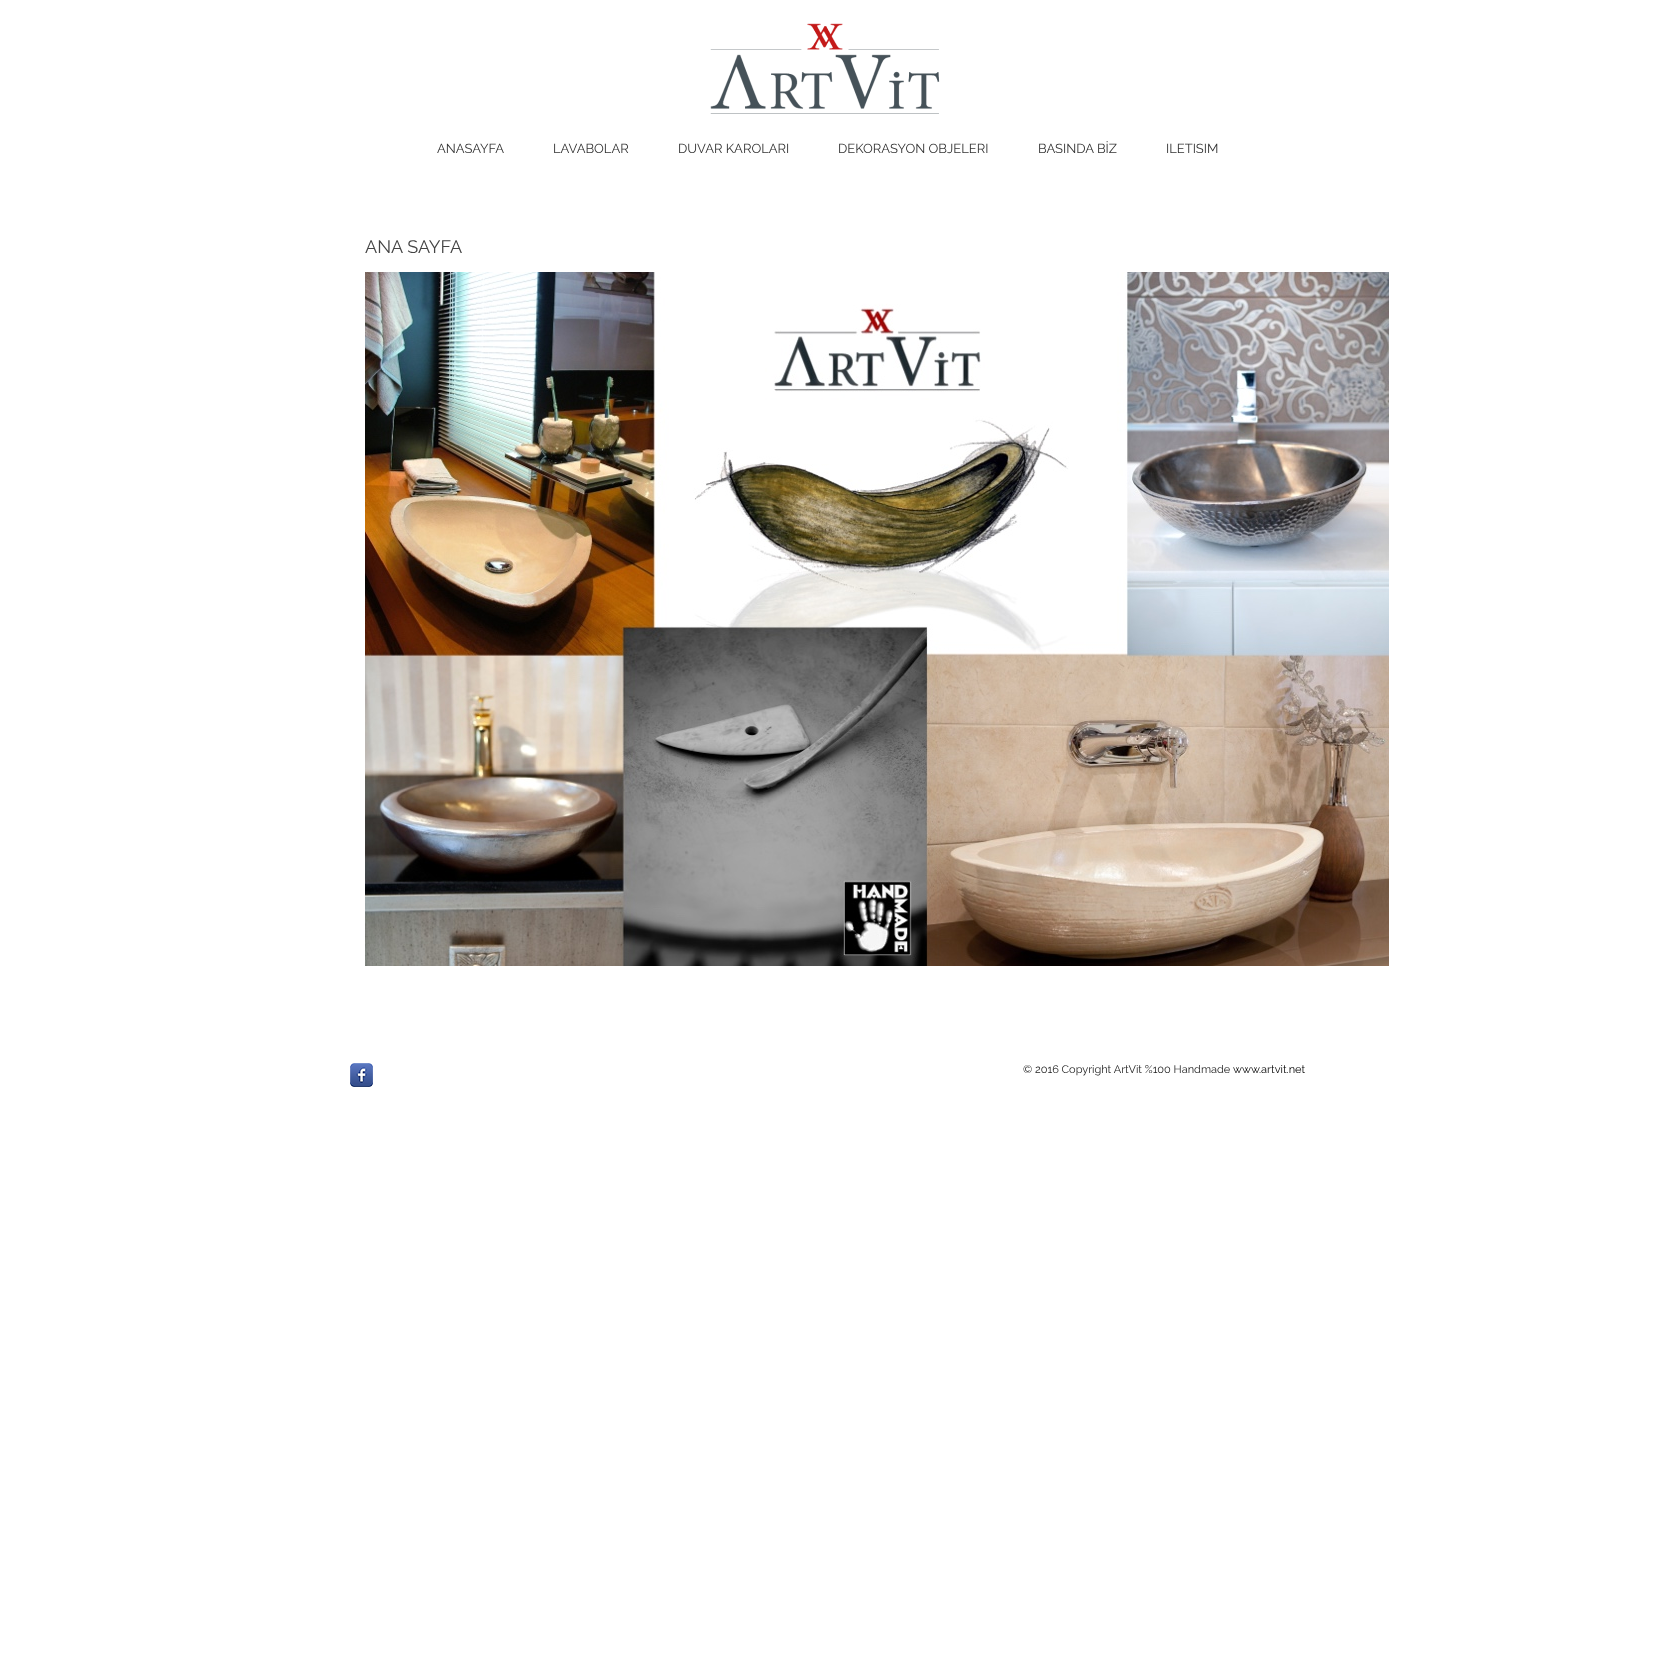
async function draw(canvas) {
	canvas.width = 1655;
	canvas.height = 1679;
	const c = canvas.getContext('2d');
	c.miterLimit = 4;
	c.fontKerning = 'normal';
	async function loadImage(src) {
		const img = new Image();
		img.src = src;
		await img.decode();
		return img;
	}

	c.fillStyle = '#fff';
	c.fillRect(0, 0, 1655, 1679);
	c.drawImage(await loadImage('img1.png'), 710, 23, 230, 91);
	c.font = '100 13px Raleway';
	c.fillStyle = '#333';
	for (const [text, x, y] of [
		['ANASAYFA', 437, 153],
		['LAVABOLAR', 553, 153],
		['DUVAR KAROLARI', 678, 153],
		['DEKORASYON OBJELERI', 838, 153],
		['BASINDA BİZ', 1038, 153],
		['ILETISIM', 1166, 153],
	]) {
		c.fillText(text, x, y);
	}
	c.font = '100 18px Raleway';
	c.fillStyle = '#444';
	c.fillText('ANA SAYFA', 365, 253);
	c.drawImage(await loadImage('img2.png'), 365, 272, 1024, 694);
	c.drawImage(await loadImage('img3.png'), 350, 1063, 23, 24);
	c.font = '100 11px Raleway';
	c.fillStyle = '#222';
	c.fillText('© 2016 Copyright ArtVit %100 Handmade', 1023, 1073);
	c.fillStyle = '#000';
	c.fillText('www.artvit.net', 1233, 1073);
}

draw(document.querySelector('canvas'));
